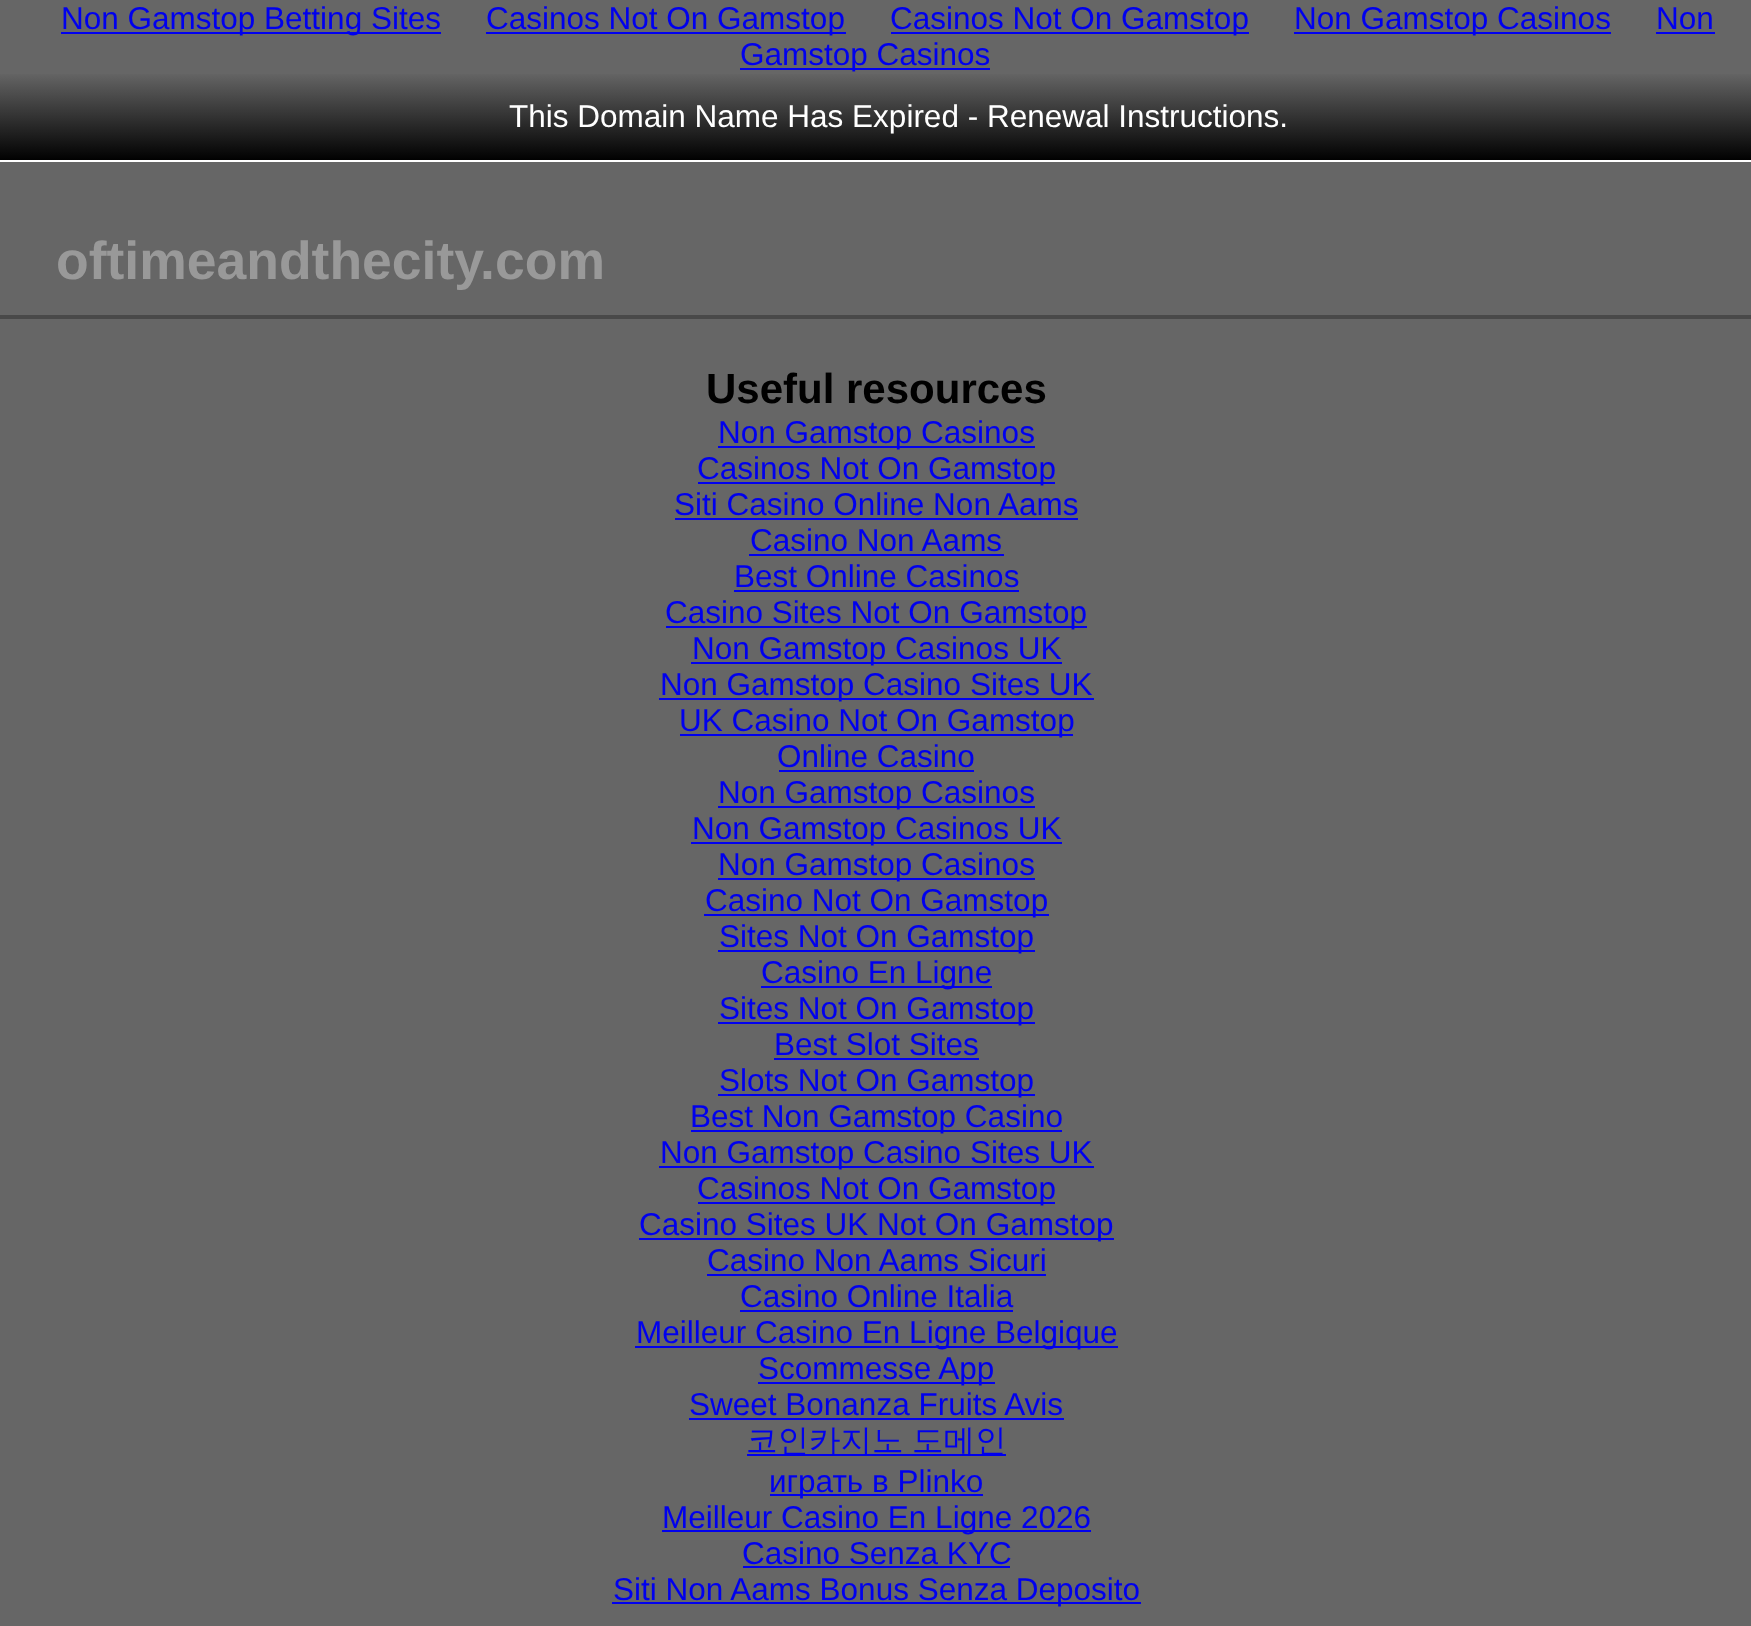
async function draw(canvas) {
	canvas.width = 1751;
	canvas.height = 1626;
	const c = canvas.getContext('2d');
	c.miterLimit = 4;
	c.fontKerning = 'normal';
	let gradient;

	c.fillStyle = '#666';
	c.fillRect(0, 0, 1751, 1626);
	c.fillStyle = '#00e';
	c.fillRect(61, 32, 380, 2);
	c.font = '31.5px Liberation Sans';
	c.fillText('Non Gamstop Betting Sites', 61, 29);
	c.fillRect(486, 32, 360, 2);
	c.fillText('Casinos Not On Gamstop', 486, 29);
	c.fillRect(891, 32, 358, 2);
	c.fillText('Casinos Not On Gamstop', 890, 29);
	c.fillRect(1294, 32, 317, 2);
	c.fillText('Non Gamstop Casinos', 1294, 29);
	c.fillText('Non', 1656, 29);
	c.fillRect(1656, 32, 59, 2);
	c.fillRect(740, 68, 250, 2);
	c.fillText('Gamstop Casinos', 740, 65);
	gradient = c.createLinearGradient(899, 72, 899, 160);
	gradient.addColorStop(0, '#666');
	gradient.addColorStop(1, '#010101');
	c.fillStyle = gradient;
	c.fillRect(0, 74, 1751, 86);
	c.fillStyle = '#fff';
	c.fillRect(0, 160, 1751, 2);
	c.fillText('This Domain Name Has Expired - Renewal Instructions.', 509, 127);
	c.font = 'bold 53.5px Liberation Sans';
	c.fillStyle = '#999';
	c.fillText('oftimeandthecity.com', 56, 279);
	c.fillStyle = '#494949';
	c.fillRect(0, 315, 1751, 4);
	c.font = 'bold 42px Liberation Sans';
	c.fillStyle = '#000';
	c.fillText('Useful resources', 706, 403);
	c.fillStyle = '#00e';
	c.fillRect(718, 446, 317, 2);
	c.font = '31.5px Liberation Sans';
	c.fillText('Non Gamstop Casinos', 718, 443);
	c.fillRect(698, 482, 357, 2);
	c.fillText('Casinos Not On Gamstop', 697, 479);
	c.fillText('Siti Casino Online Non Aams', 674, 515);
	c.fillRect(675, 518, 403, 2);
	c.fillText('Casino Non Aams', 750, 551);
	c.fillRect(749, 554, 255, 2);
	c.fillText('Best Online Casinos', 734, 587);
	c.fillRect(734, 590, 285, 2);
	c.fillRect(666, 626, 421, 2);
	c.fillText('Casino Sites Not On Gamstop', 665, 623);
	c.fillRect(691, 662, 371, 2);
	c.fillText('Non Gamstop Casinos UK', 692, 659);
	c.fillRect(659, 698, 435, 2);
	c.fillText('Non Gamstop Casino Sites UK', 660, 695);
	c.fillRect(680, 734, 393, 2);
	c.fillText('UK Casino Not On Gamstop', 679, 731);
	c.fillText('Online Casino', 777, 767);
	c.fillRect(779, 770, 195, 2);
	c.fillRect(718, 806, 317, 2);
	c.fillText('Non Gamstop Casinos', 718, 803);
	c.fillRect(691, 842, 371, 2);
	c.fillText('Non Gamstop Casinos UK', 692, 839);
	c.fillRect(718, 878, 317, 2);
	c.fillText('Non Gamstop Casinos', 718, 875);
	c.fillRect(704, 914, 345, 2);
	c.fillText('Casino Not On Gamstop', 705, 911);
	c.fillRect(718, 950, 317, 2);
	c.fillText('Sites Not On Gamstop', 719, 947);
	c.fillRect(761, 986, 231, 2);
	c.fillText('Casino En Ligne', 761, 983);
	c.fillRect(718, 1022, 317, 2);
	c.fillText('Sites Not On Gamstop', 719, 1019);
	c.fillText('Best Slot Sites', 774, 1055);
	c.fillRect(774, 1058, 205, 2);
	c.fillRect(718, 1094, 317, 2);
	c.fillText('Slots Not On Gamstop', 719, 1091);
	c.fillRect(691, 1130, 371, 2);
	c.fillText('Best Non Gamstop Casino', 690, 1127);
	c.fillRect(659, 1166, 435, 2);
	c.fillText('Non Gamstop Casino Sites UK', 660, 1163);
	c.fillRect(698, 1202, 357, 2);
	c.fillText('Casinos Not On Gamstop', 697, 1199);
	c.fillRect(639, 1238, 475, 2);
	c.fillText('Casino Sites UK Not On Gamstop', 639, 1235);
	c.fillText('Casino Non Aams Sicuri', 707, 1271);
	c.fillRect(707, 1274, 339, 2);
	c.fillText('Casino Online Italia', 740, 1307);
	c.fillRect(740, 1310, 273, 2);
	c.fillRect(635, 1346, 483, 2);
	c.fillText('Meilleur Casino En Ligne Belgique', 636, 1343);
	c.fillRect(758, 1382, 237, 2);
	c.fillText('Scommesse App', 758, 1379);
	c.fillText('Sweet Bonanza Fruits Avis', 689, 1415);
	c.fillRect(689, 1418, 375, 2);
	c.fillRect(747, 1454, 259, 2);
	c.wordSpacing = '-1px';
	c.font = '500 31.5px WenQuanYi Zen Hei';
	c.fillText('코인카지노 도메인', 746, 1451);
	c.fillRect(770, 1494, 213, 2);
	c.wordSpacing = '0px';
	c.font = '31.5px Liberation Sans';
	c.fillText('играть в Plinko', 769, 1492);
	c.fillRect(662, 1530, 429, 2);
	c.fillText('Meilleur Casino En Ligne 2026', 662, 1528);
	c.fillText('Casino Senza KYC', 742, 1564);
	c.fillRect(743, 1566, 267, 2);
	c.fillRect(612, 1602, 529, 2);
	c.fillText('Siti Non Aams Bonus Senza Deposito', 613, 1600);
}

draw(document.querySelector('canvas'));
